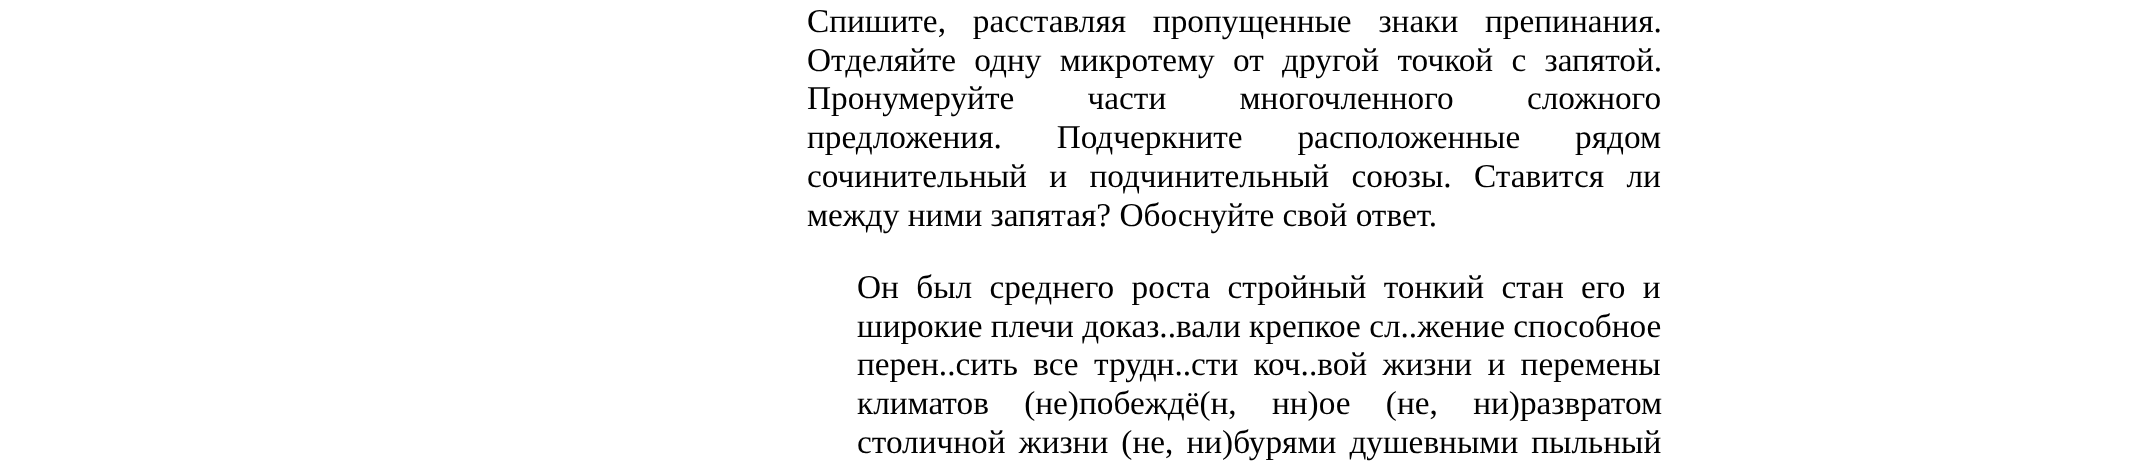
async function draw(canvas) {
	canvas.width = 2142;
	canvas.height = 462;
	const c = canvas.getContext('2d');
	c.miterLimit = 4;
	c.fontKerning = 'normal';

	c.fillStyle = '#fff';
	c.fillRect(0, 0, 2142, 462);
	c.wordSpacing = '18.5px';
	c.font = '33.3px Liberation Serif';
	c.fillStyle = '#000';
	c.fillText('Спишите, расставляя пропущенные знаки препинания.', 807, 32);
	c.wordSpacing = '10px';
	c.fillText('Отделяйте одну микротему от другой точкой с запятой.', 807, 71);
	c.wordSpacing = '65px';
	c.fillText('Пронумеруйте части многочленного сложного', 807, 109);
	c.wordSpacing = '46.5px';
	c.fillText('предложения. Подчеркните расположенные рядом', 807, 148);
	c.wordSpacing = '14px';
	c.fillText('сочинительный и подчинительный союзы. Ставится ли', 807, 187);
	c.wordSpacing = '0px';
	c.fillText('между ними запятая? Обоснуйте свой ответ.', 807, 226);
	c.wordSpacing = '9px';
	c.fillText('Он был среднего роста стройный тонкий стан его и', 857, 298);
	c.wordSpacing = '0px';
	c.fillText('широкие плечи доказ..вали крепкое сл..жение способное', 857, 337);
	c.wordSpacing = '7px';
	c.fillText('перен..сить все трудн..сти коч..вой жизни и перемены', 857, 375);
	c.wordSpacing = '27px';
	c.fillText('климатов (не)побеждё(н, нн)ое (не, ни)развратом', 857, 414);
	c.wordSpacing = '4.75px';
	c.fillText('столичной жизни (не, ни)бурями душевными пыльный', 857, 453);
}

draw(document.querySelector('canvas'));
